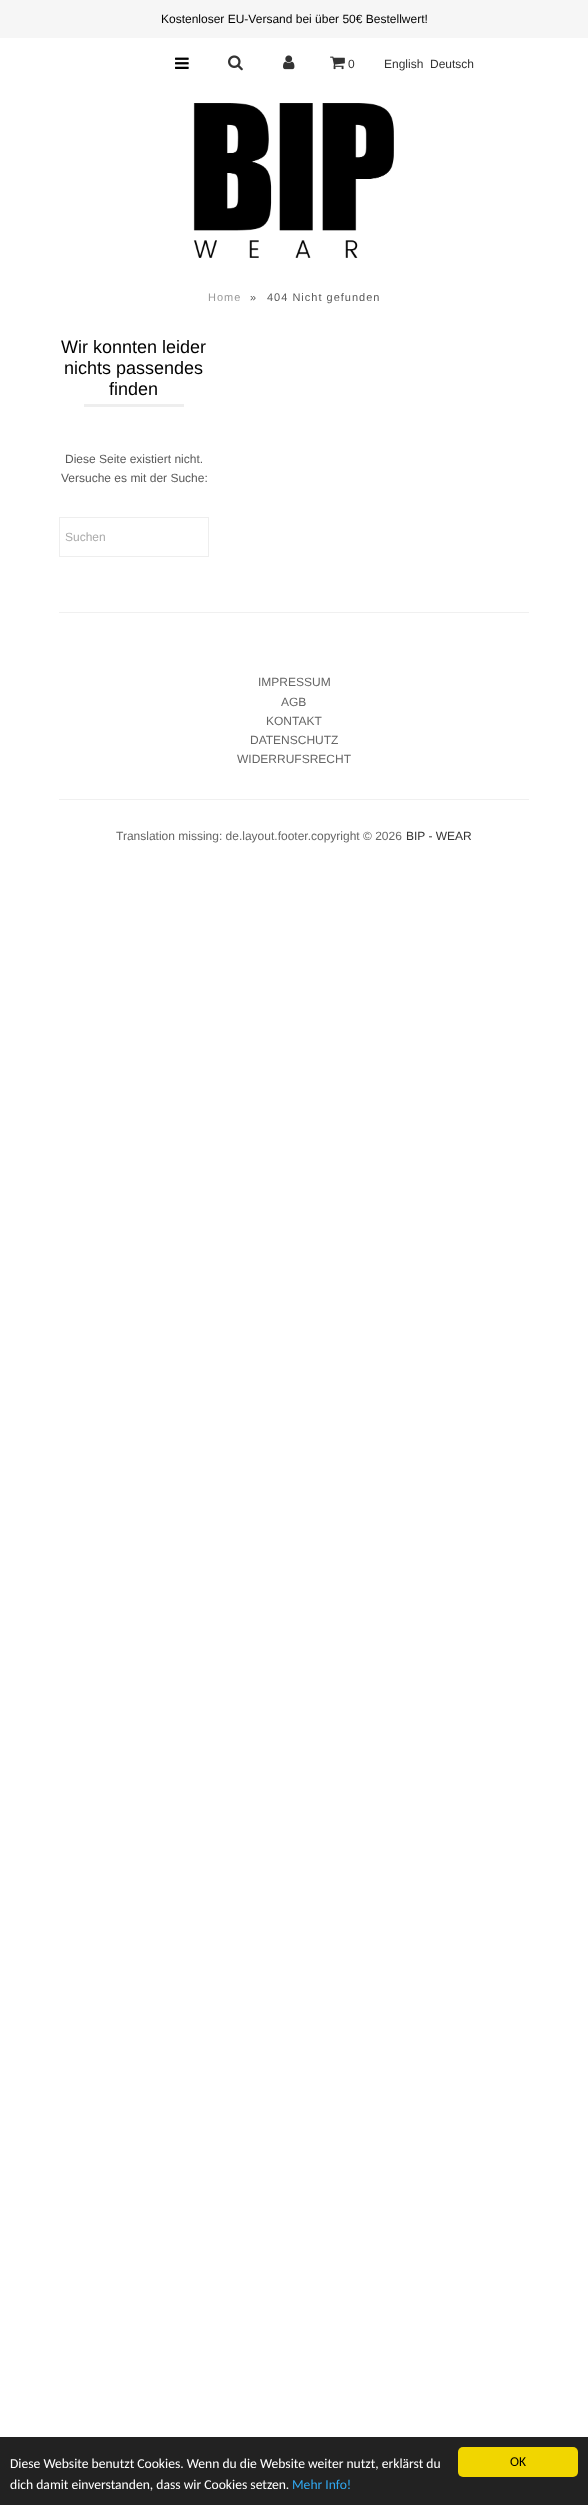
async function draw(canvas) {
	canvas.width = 588;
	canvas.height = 2505;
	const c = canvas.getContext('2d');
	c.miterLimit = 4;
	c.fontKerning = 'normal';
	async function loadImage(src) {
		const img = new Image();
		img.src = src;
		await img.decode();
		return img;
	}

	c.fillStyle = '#fff';
	c.fillRect(0, 0, 588, 2505);
	c.fillStyle = '#f6f6f6';
	c.fillRect(0, 0, 588, 38);
	c.font = '12px Liberation Sans';
	c.fillStyle = '#000';
	c.fillText('Kostenloser EU-Versand bei über 50€ Bestellwert!', 161, 23);
	c.drawImage(await loadImage('img1.png'), 175, 57, 14, 12);
	c.drawImage(await loadImage('img2.png'), 228, 55, 15, 16);
	c.drawImage(await loadImage('img3.png'), 283, 55, 12, 15);
	c.drawImage(await loadImage('img4.png'), 330, 56, 15, 14);
	c.fillStyle = '#333';
	for (const [text, x, y] of [
		['0', 348, 68],
		['English', 384, 68],
		['Deutsch', 430, 68],
	]) {
		c.fillText(text, x, y);
	}
	c.drawImage(await loadImage('img5.png'), 193, 103, 201, 155);
	c.letterSpacing = '1px';
	c.font = '11px Liberation Sans';
	c.fillStyle = '#999';
	c.fillText('Home', 208, 301);
	c.fillStyle = '#5a5a5a';
	c.fillText('»', 250, 301);
	c.fillText('404 Nicht gefunden', 267, 301);
	c.letterSpacing = '0px';
	c.font = '18px Liberation Sans';
	c.fillStyle = '#000';
	for (const [text, x, y] of [
		['Wir konnten leider', 61, 353],
		['nichts passendes', 64, 374],
		['finden', 109, 395],
	]) {
		c.fillText(text, x, y);
	}
	c.fillStyle = '#eee';
	c.fillRect(84, 404, 100, 3);
	c.font = '12px Liberation Sans';
	c.fillStyle = '#5a5a5a';
	c.fillText('Diese Seite existiert nicht.', 65, 463);
	c.fillText('Versuche es mit der Suche:', 61, 482);
	c.strokeStyle = '#eee';
	c.strokeRect(59.5, 517.5, 149, 39);
	c.fillStyle = '#aaa';
	c.fillText('Suchen', 65, 541);
	c.fillStyle = '#f0f0f0';
	c.fillRect(59, 612, 470, 1);
	c.fillRect(59, 799, 470, 1);
	c.fillStyle = '#666';
	for (const [text, x, y] of [
		['IMPRESSUM', 258, 686],
		['AGB', 281, 706],
		['KONTAKT', 266, 725],
		['DATENSCHUTZ', 250, 744],
		['WIDERRUFSRECHT', 237, 763],
		['Translation missing: de.layout.footer.copyright © 2026', 116, 840],
	]) {
		c.fillText(text, x, y);
	}
	c.fillStyle = '#333';
	c.fillText('BIP - WEAR', 406, 840);
	c.fillStyle = '#222';
	c.fillRect(0, 2437, 588, 68);
	c.font = '13.6px Carlito';
	c.fillStyle = '#fff';
	c.fillText('Diese Website benutzt Cookies. Wenn du die Website weiter nutzt, erklärst du', 10, 2468);
	c.fillText('dich damit einverstanden, dass wir Cookies setzen.', 10, 2489);
	c.fillStyle = '#31a8f0';
	c.fillText('Mehr Info!', 292, 2489);
	c.fillStyle = '#f1d600';
	c.beginPath();
	c.roundRect(458, 2447, 120, 30, 5);
	c.fill();
	c.fillStyle = '#000';
	c.fillText('OK', 510, 2466);
}

draw(document.querySelector('canvas'));
